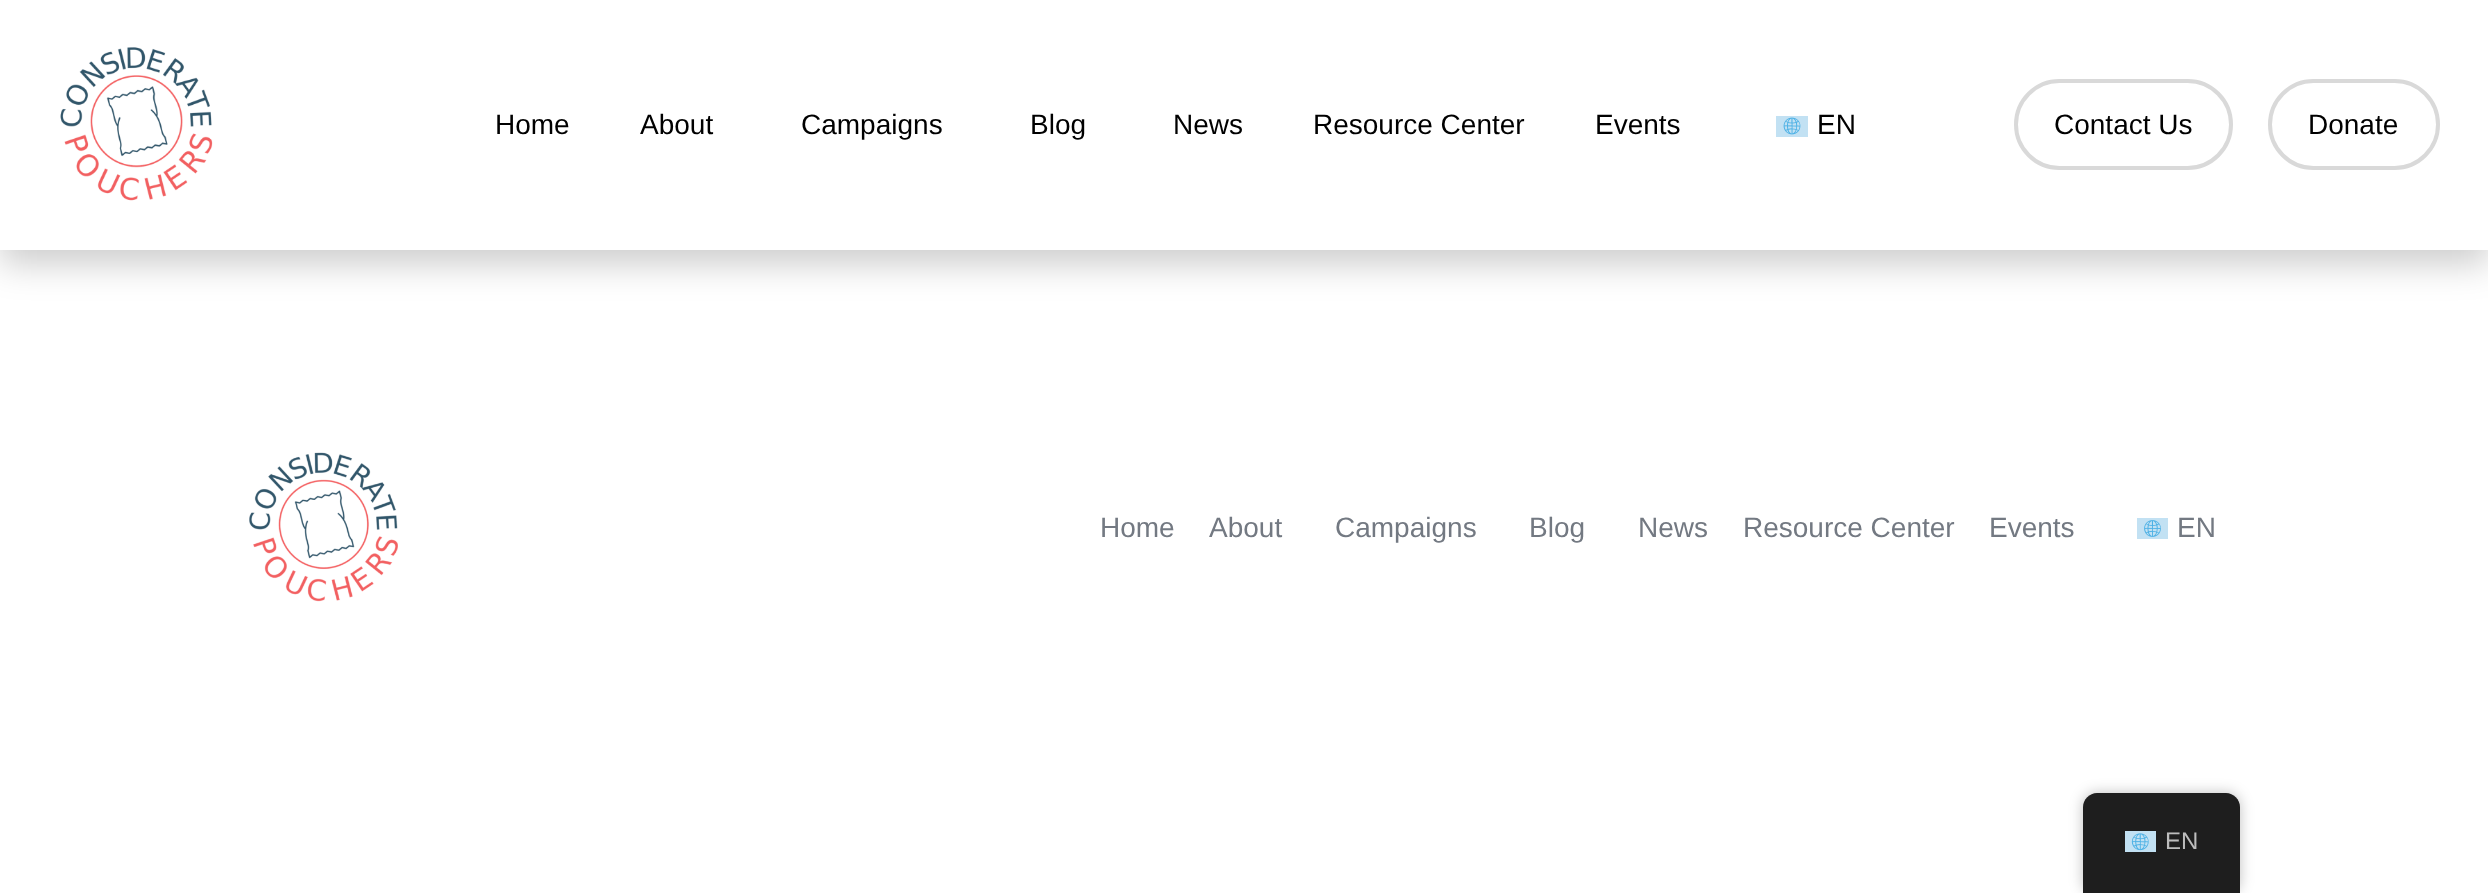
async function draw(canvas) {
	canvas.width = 2488;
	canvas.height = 893;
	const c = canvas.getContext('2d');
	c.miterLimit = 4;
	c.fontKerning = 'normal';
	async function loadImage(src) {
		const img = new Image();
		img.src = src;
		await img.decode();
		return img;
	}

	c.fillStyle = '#fff';
	c.fillRect(0, 0, 2488, 893);
	c.fillStyle = '#00000033';
	c.filter = 'blur(17.5px)';
	c.beginPath();
	c.rect(0, 14, 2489, 250);
	c.fill();
	c.filter = 'none';
	c.fillStyle = '#fff';
	c.fillRect(0, 0, 2488, 250);
	c.drawImage(await loadImage('img1.png'), 60, 47, 153, 154);
	c.font = '28px Liberation Sans';
	c.fillStyle = '#000';
	for (const [text, x, y] of [
		['Home', 495, 134],
		['About', 640, 134],
		['Campaigns', 801, 134],
		['Blog', 1030, 134],
		['News', 1173, 134],
		['Resource Center', 1313, 134],
		['Events', 1595, 134],
	]) {
		c.fillText(text, x, y);
	}
	c.drawImage(await loadImage('img2.png'), 1776, 116, 32, 21);
	c.fillText('EN', 1817, 134);
	c.beginPath();
	c.roundRect(2016, 81, 215, 87, 43.5);
	c.strokeStyle = '#d9d9d9';
	c.lineWidth = 4;
	c.stroke();
	c.fillText('Contact Us', 2054, 134);
	c.beginPath();
	c.roundRect(2270, 81, 168, 87, 43.5);
	c.stroke();
	c.fillText('Donate', 2308, 134);
	c.drawImage(await loadImage('img3.png'), 249, 452, 149, 150);
	c.fillStyle = '#737982';
	for (const [text, x, y] of [
		['Home', 1100, 537],
		['About', 1209, 537],
		['Campaigns', 1335, 537],
		['Blog', 1529, 537],
		['News', 1638, 537],
		['Resource Center', 1743, 537],
		['Events', 1989, 537],
	]) {
		c.fillText(text, x, y);
	}
	c.drawImage(await loadImage('img4.png'), 2137, 518, 31, 21);
	c.fillText('EN', 2177, 537);
	c.fillStyle = '#00000040';
	c.filter = 'blur(7px)';
	c.beginPath();
	c.roundRect(2083, 793, 157, 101, 14);
	c.fill();
	c.filter = 'none';
	c.fillStyle = '#1e1e1e';
	c.beginPath();
	c.moveTo(2097, 793);
	c.lineTo(2226, 793);
	c.bezierCurveTo(2233.5, 793, 2240, 799.5, 2240, 807);
	c.lineTo(2240, 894);
	c.lineTo(2083, 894);
	c.lineTo(2083, 807);
	c.bezierCurveTo(2083, 799.5, 2089.5, 793, 2097, 793);
	c.closePath();
	c.fill();
	c.drawImage(await loadImage('img5.png'), 2125, 831, 31, 21);
	c.font = '24px Liberation Sans';
	c.fillStyle = '#bdbdbd';
	c.fillText('EN', 2165, 849);
}

draw(document.querySelector('canvas'));
